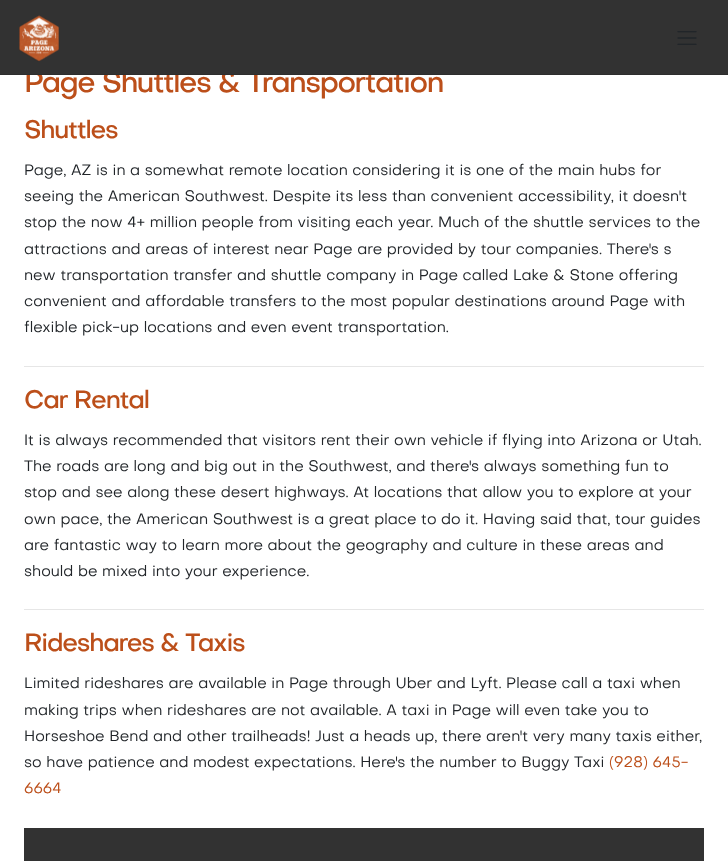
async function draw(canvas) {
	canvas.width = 728;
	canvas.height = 861;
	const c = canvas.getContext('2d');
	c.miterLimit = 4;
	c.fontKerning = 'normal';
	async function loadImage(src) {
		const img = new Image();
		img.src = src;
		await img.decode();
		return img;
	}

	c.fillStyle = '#fff';
	c.fillRect(0, 0, 728, 861);
	c.letterSpacing = '-1.45px';
	c.font = '500 28.75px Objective';
	c.fillStyle = '#bc4f1a';
	c.fillText('Page Shuttles & Transportation', 24, 92);
	c.fillStyle = '#323232';
	c.fillRect(0, 0, 728, 74);
	c.fillStyle = '#2d2d2d';
	c.fillRect(0, 74, 728, 1);
	c.drawImage(await loadImage('img1.png'), 19, 15, 40, 47);
	c.drawImage(await loadImage('img2.png'), 677, 31, 20, 14);
	c.letterSpacing = '-1.25px';
	c.font = '500 24.75px Objective';
	c.fillStyle = '#bc4f1a';
	c.fillText('Shuttles', 24, 138);
	c.letterSpacing = '0px';
	c.font = '15px Objective';
	c.fillStyle = '#212529';
	for (const [text, x, y] of [
		['Page, AZ is in a somewhat remote location considering it is one of the main hubs for', 24, 175],
		['seeing the American Southwest. Despite its less than convenient accessibility, it doesn\'t', 24, 201],
		['stop the now 4+ million people from visiting each year. Much of the shuttle services to the', 24, 227],
		['attractions and areas of interest near Page are provided by tour companies. There\'s s', 24, 254],
		['new transportation transfer and shuttle company in Page called Lake & Stone offering', 24, 280],
		['convenient and affordable transfers to the most popular destinations around Page with', 24, 306],
		['flexible pick-up locations and even event transportation.', 24, 332],
	]) {
		c.fillText(text, x, y);
	}
	c.fillStyle = '#e6e6e6';
	c.fillRect(24, 366, 680, 1);
	c.letterSpacing = '-1.25px';
	c.font = '500 24.75px Objective';
	c.fillStyle = '#bc4f1a';
	c.fillText('Car Rental', 24, 408);
	c.letterSpacing = '0px';
	c.font = '15px Objective';
	c.fillStyle = '#212529';
	for (const [text, x, y] of [
		['It is always recommended that visitors rent their own vehicle if flying into Arizona or Utah.', 24, 445],
		['The roads are long and big out in the Southwest, and there\'s always something fun to', 24, 471],
		['stop and see along these desert highways. At locations that allow you to explore at your', 24, 497],
		['own pace, the American Southwest is a great place to do it. Having said that, tour guides', 24, 524],
		['are fantastic way to learn more about the geography and culture in these areas and', 24, 550],
		['should be mixed into your experience.', 24, 576],
	]) {
		c.fillText(text, x, y);
	}
	c.fillStyle = '#e6e6e6';
	c.fillRect(24, 609, 680, 1);
	c.letterSpacing = '-1.25px';
	c.font = '500 24.75px Objective';
	c.fillStyle = '#bc4f1a';
	c.fillText('Rideshares & Taxis', 24, 651);
	c.letterSpacing = '0px';
	c.font = '15px Objective';
	c.fillStyle = '#212529';
	for (const [text, x, y] of [
		['Limited rideshares are available in Page through Uber and Lyft. Please call a taxi when', 24, 688],
		['making trips when rideshares are not available. A taxi in Page will even take you to', 24, 715],
		['Horseshoe Bend and other trailheads! Just a heads up, there aren\'t very many taxis either,', 24, 741],
		['so have patience and modest expectations. Here\'s the number to Buggy Taxi', 24, 767],
	]) {
		c.fillText(text, x, y);
	}
	c.fillStyle = '#bc4f1a';
	c.fillText('(928) 645-', 609, 767);
	c.fillText('6664', 24, 793);
	c.fillStyle = '#323232';
	c.fillRect(24, 828, 680, 33);
}

draw(document.querySelector('canvas'));
